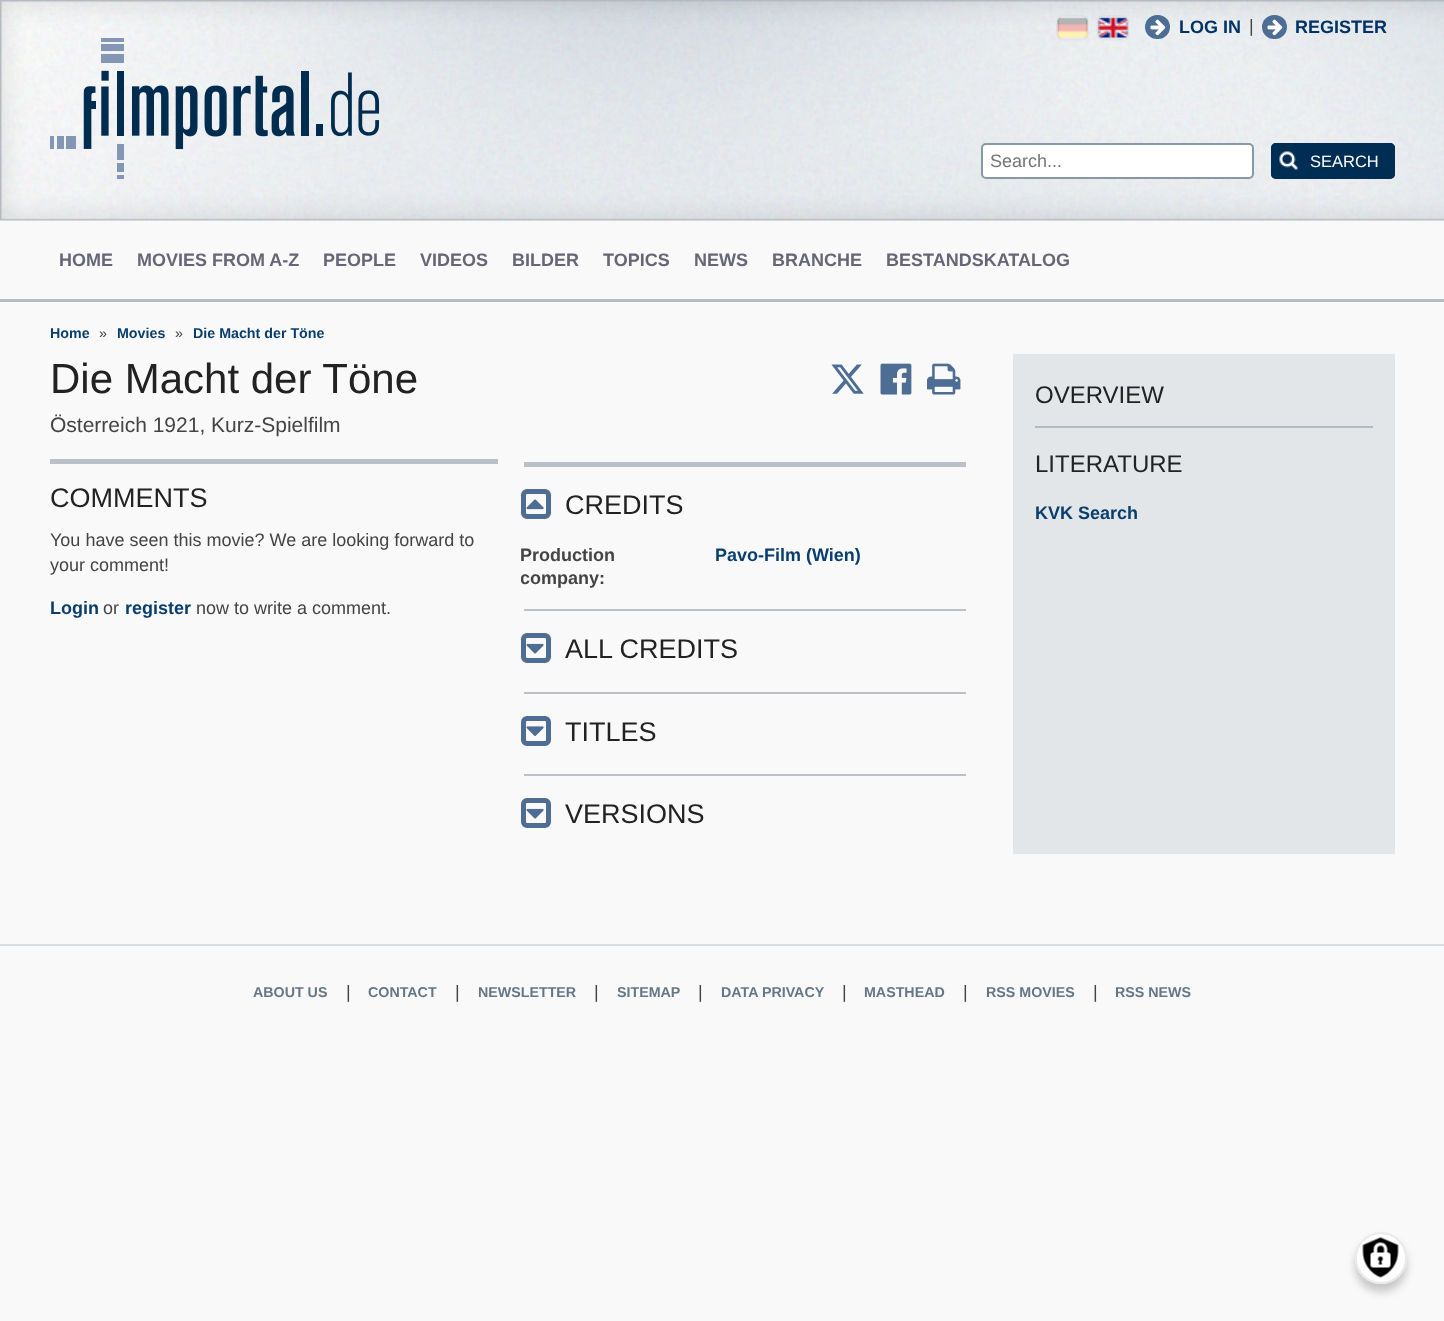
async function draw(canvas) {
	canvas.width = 1444;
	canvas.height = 1321;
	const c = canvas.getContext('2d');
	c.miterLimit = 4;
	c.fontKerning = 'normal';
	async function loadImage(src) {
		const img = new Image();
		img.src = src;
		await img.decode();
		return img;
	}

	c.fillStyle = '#f9f9f9';
	c.fillRect(0, 0, 1444, 1321);
	c.drawImage(await loadImage('img1.png'), 0, 0, 1444, 221);
	c.drawImage(await loadImage('img2.png'), 50, 38, 330, 141);
	c.drawImage(await loadImage('img3.png'), 1056, 15, 33, 26);
	c.drawImage(await loadImage('img4.png'), 1096, 15, 34, 26);
	c.fillStyle = '#4e6d95';
	c.beginPath();
	c.roundRect(1145, 15, 25, 24, 12);
	c.fill();
	c.drawImage(await loadImage('img5.png'), 1150, 19, 16, 17);
	c.font = 'bold 18px Liberation Sans';
	c.fillStyle = '#036';
	c.fillText('LOG IN', 1179, 33);
	c.font = '18px Liberation Sans';
	c.fillStyle = '#444';
	c.fillText('|', 1249, 32);
	c.fillStyle = '#4e6d95';
	c.beginPath();
	c.roundRect(1262, 15, 25, 24, 12);
	c.fill();
	c.drawImage(await loadImage('img5.png'), 1267, 19, 16, 17);
	c.font = 'bold 18px Liberation Sans';
	c.fillStyle = '#036';
	c.fillText('REGISTER', 1295, 33);
	c.fillStyle = '#fff';
	c.beginPath();
	c.roundRect(982, 144, 271, 34, 4);
	c.fill();
	c.strokeStyle = '#8998a6';
	c.lineWidth = 2;
	c.stroke();
	c.font = '18px Liberation Sans';
	c.fillStyle = '#757575';
	c.fillText('Search...', 990, 167);
	c.fillStyle = '#002d54';
	c.beginPath();
	c.roundRect(1271, 143, 124, 36, 5);
	c.fill();
	c.drawImage(await loadImage('img6.png'), 1279, 151, 19, 19);
	c.beginPath();
	c.roundRect(1272, 144, 122, 34, 4);
	c.strokeStyle = '#002d54';
	c.stroke();
	c.font = '16.5px Liberation Sans';
	c.fillStyle = '#fff';
	c.fillText('SEARCH', 1310, 167);
	c.fillStyle = '#b5bbc2';
	c.fillRect(0, 299, 1444, 3);
	c.font = 'bold 18px Liberation Sans';
	c.fillStyle = '#667';
	for (const [text, x, y] of [
		['HOME', 59, 266],
		['MOVIES FROM A-Z', 137, 266],
		['PEOPLE', 323, 266],
		['VIDEOS', 420, 266],
		['BILDER', 512, 266],
		['TOPICS', 603, 266],
		['NEWS', 694, 266],
		['BRANCHE', 772, 266],
		['BESTANDSKATALOG', 886, 266],
	]) {
		c.fillText(text, x, y);
	}
	c.font = 'bold 14.25px Liberation Sans';
	c.fillStyle = '#093e6d';
	c.fillText('Home', 50, 338);
	c.font = '14.25px Liberation Sans';
	c.fillStyle = '#444';
	c.fillText('»', 99, 338);
	c.font = 'bold 14.25px Liberation Sans';
	c.fillStyle = '#093e6d';
	c.fillText('Movies', 117, 338);
	c.font = '14.25px Liberation Sans';
	c.fillStyle = '#444';
	c.fillText('»', 175, 338);
	c.font = 'bold 14.25px Liberation Sans';
	c.fillStyle = '#093e6d';
	c.fillText('Die Macht der Töne', 193, 338);
	c.font = '42px Liberation Sans';
	c.fillStyle = '#222';
	c.fillText('Die Macht der Töne', 50, 393);
	c.drawImage(await loadImage('img7.png'), 831, 364, 33, 30);
	c.drawImage(await loadImage('img8.png'), 880, 363, 32, 32);
	c.drawImage(await loadImage('img9.png'), 927, 363, 34, 32);
	c.font = '21px Liberation Sans';
	c.fillStyle = '#444';
	c.fillText('Österreich 1921, Kurz-Spielfilm', 50, 432);
	c.fillStyle = '#b9c0c7';
	c.fillRect(50, 459, 448, 5);
	c.font = '27px Liberation Sans';
	c.fillStyle = '#222';
	c.fillText('COMMENTS', 50, 507);
	c.font = '18px Liberation Sans';
	c.fillStyle = '#444';
	c.fillText('You have seen this movie? We are looking forward to', 50, 546);
	c.fillText('your comment!', 50, 571);
	c.font = 'bold 18px Liberation Sans';
	c.fillStyle = '#093e6d';
	c.fillText('Login', 50, 614);
	c.font = '18px Liberation Sans';
	c.fillStyle = '#444';
	c.fillText('or', 103, 614);
	c.font = 'bold 18px Liberation Sans';
	c.fillStyle = '#093e6d';
	c.fillText('register', 125, 614);
	c.font = '18px Liberation Sans';
	c.fillStyle = '#444';
	c.fillText('now to write a comment.', 196, 614);
	c.fillStyle = '#b9c0c7';
	c.fillRect(524, 462, 442, 5);
	c.beginPath();
	c.roundRect(523.5, 491.5, 25, 25, 3.5);
	c.strokeStyle = '#4e6d95';
	c.lineWidth = 5;
	c.stroke();
	c.drawImage(await loadImage('img10.png'), 526, 499, 18, 11);
	c.font = '27px Liberation Sans';
	c.fillStyle = '#222';
	c.fillText('CREDITS', 565, 514);
	c.font = 'bold 18px Liberation Sans';
	c.fillStyle = '#444';
	c.fillText('Production', 520, 561);
	c.save();
	c.beginPath();
	c.roundRect(521, 545, 447, 61, [0, 0, 5, 5]);
	c.clip();
	c.fillText('company', 520, 584);
	c.restore();
	c.fillText(':', 599, 584);
	c.fillStyle = '#093e6d';
	c.fillText('Pavo-Film (Wien)', 715, 561);
	c.fillStyle = '#b9c0c7';
	c.fillRect(524, 609, 442, 2);
	c.beginPath();
	c.roundRect(523.5, 635.5, 25, 25, 3.5);
	c.stroke();
	c.drawImage(await loadImage('img11.png'), 526, 643, 18, 11);
	c.font = '27px Liberation Sans';
	c.fillStyle = '#222';
	c.fillText('ALL CREDITS', 565, 658);
	c.fillStyle = '#b9c0c7';
	c.fillRect(524, 692, 442, 2);
	c.beginPath();
	c.roundRect(523.5, 718.5, 25, 25, 3.5);
	c.stroke();
	c.drawImage(await loadImage('img12.png'), 526, 726, 18, 10);
	c.fillStyle = '#222';
	c.fillText('TITLES', 565, 741);
	c.fillStyle = '#b9c0c7';
	c.fillRect(524, 774, 442, 2);
	c.beginPath();
	c.roundRect(523.5, 800.5, 25, 25, 3.5);
	c.stroke();
	c.drawImage(await loadImage('img11.png'), 526, 808, 18, 11);
	c.fillStyle = '#222';
	c.fillText('VERSIONS', 565, 823);
	c.fillStyle = '#e2e6e9';
	c.fillRect(1013, 354, 382, 500);
	c.fillStyle = '#b5bbc2';
	c.fillRect(1035, 426, 338, 2);
	c.font = '24px Liberation Sans';
	c.fillStyle = '#222';
	c.fillText('OVERVIEW', 1035, 403);
	c.fillText('LITERATURE', 1035, 472);
	c.font = 'bold 18px Liberation Sans';
	c.fillStyle = '#093e6d';
	c.fillText('KVK Search', 1035, 519);
	c.fillStyle = '#d9dce0';
	c.fillRect(0, 944, 1444, 2);
	c.font = 'bold 14.25px Liberation Sans';
	c.fillStyle = '#647786';
	c.fillText('ABOUT US', 253, 997);
	c.font = '18px Liberation Sans';
	c.fillStyle = '#444';
	c.fillText('|', 346, 998);
	c.font = 'bold 14.25px Liberation Sans';
	c.fillStyle = '#647786';
	c.fillText('CONTACT', 368, 997);
	c.font = '18px Liberation Sans';
	c.fillStyle = '#444';
	c.fillText('|', 455, 998);
	c.font = 'bold 14.25px Liberation Sans';
	c.fillStyle = '#647786';
	c.fillText('NEWSLETTER', 478, 997);
	c.font = '18px Liberation Sans';
	c.fillStyle = '#444';
	c.fillText('|', 594, 998);
	c.font = 'bold 14.25px Liberation Sans';
	c.fillStyle = '#647786';
	c.fillText('SITEMAP', 617, 997);
	c.font = '18px Liberation Sans';
	c.fillStyle = '#444';
	c.fillText('|', 698, 998);
	c.font = 'bold 14.25px Liberation Sans';
	c.fillStyle = '#647786';
	c.fillText('DATA PRIVACY', 721, 997);
	c.font = '18px Liberation Sans';
	c.fillStyle = '#444';
	c.fillText('|', 842, 998);
	c.font = 'bold 14.25px Liberation Sans';
	c.fillStyle = '#647786';
	c.fillText('MASTHEAD', 864, 997);
	c.font = '18px Liberation Sans';
	c.fillStyle = '#444';
	c.fillText('|', 963, 998);
	c.font = 'bold 14.25px Liberation Sans';
	c.fillStyle = '#647786';
	c.fillText('RSS MOVIES', 986, 997);
	c.font = '18px Liberation Sans';
	c.fillStyle = '#444';
	c.fillText('|', 1093, 998);
	c.font = 'bold 14.25px Liberation Sans';
	c.fillStyle = '#647786';
	c.fillText('RSS NEWS', 1115, 997);
	c.fillStyle = '#00000033';
	c.filter = 'blur(4px)';
	c.beginPath();
	c.roundRect(1355, 1239, 52, 53, 26);
	c.fill();
	c.filter = 'none';
	c.fillStyle = '#fff';
	c.beginPath();
	c.arc(1381, 1258, 26, 0, 2 * Math.PI);
	c.fill();
	c.drawImage(await loadImage('img13.png'), 1362, 1237, 37, 41);
	c.beginPath();
	c.arc(1381, 1258, 25, 0, 2 * Math.PI);
	c.strokeStyle = '#eaeaea';
	c.lineWidth = 2;
	c.stroke();
}

draw(document.querySelector('canvas'));
